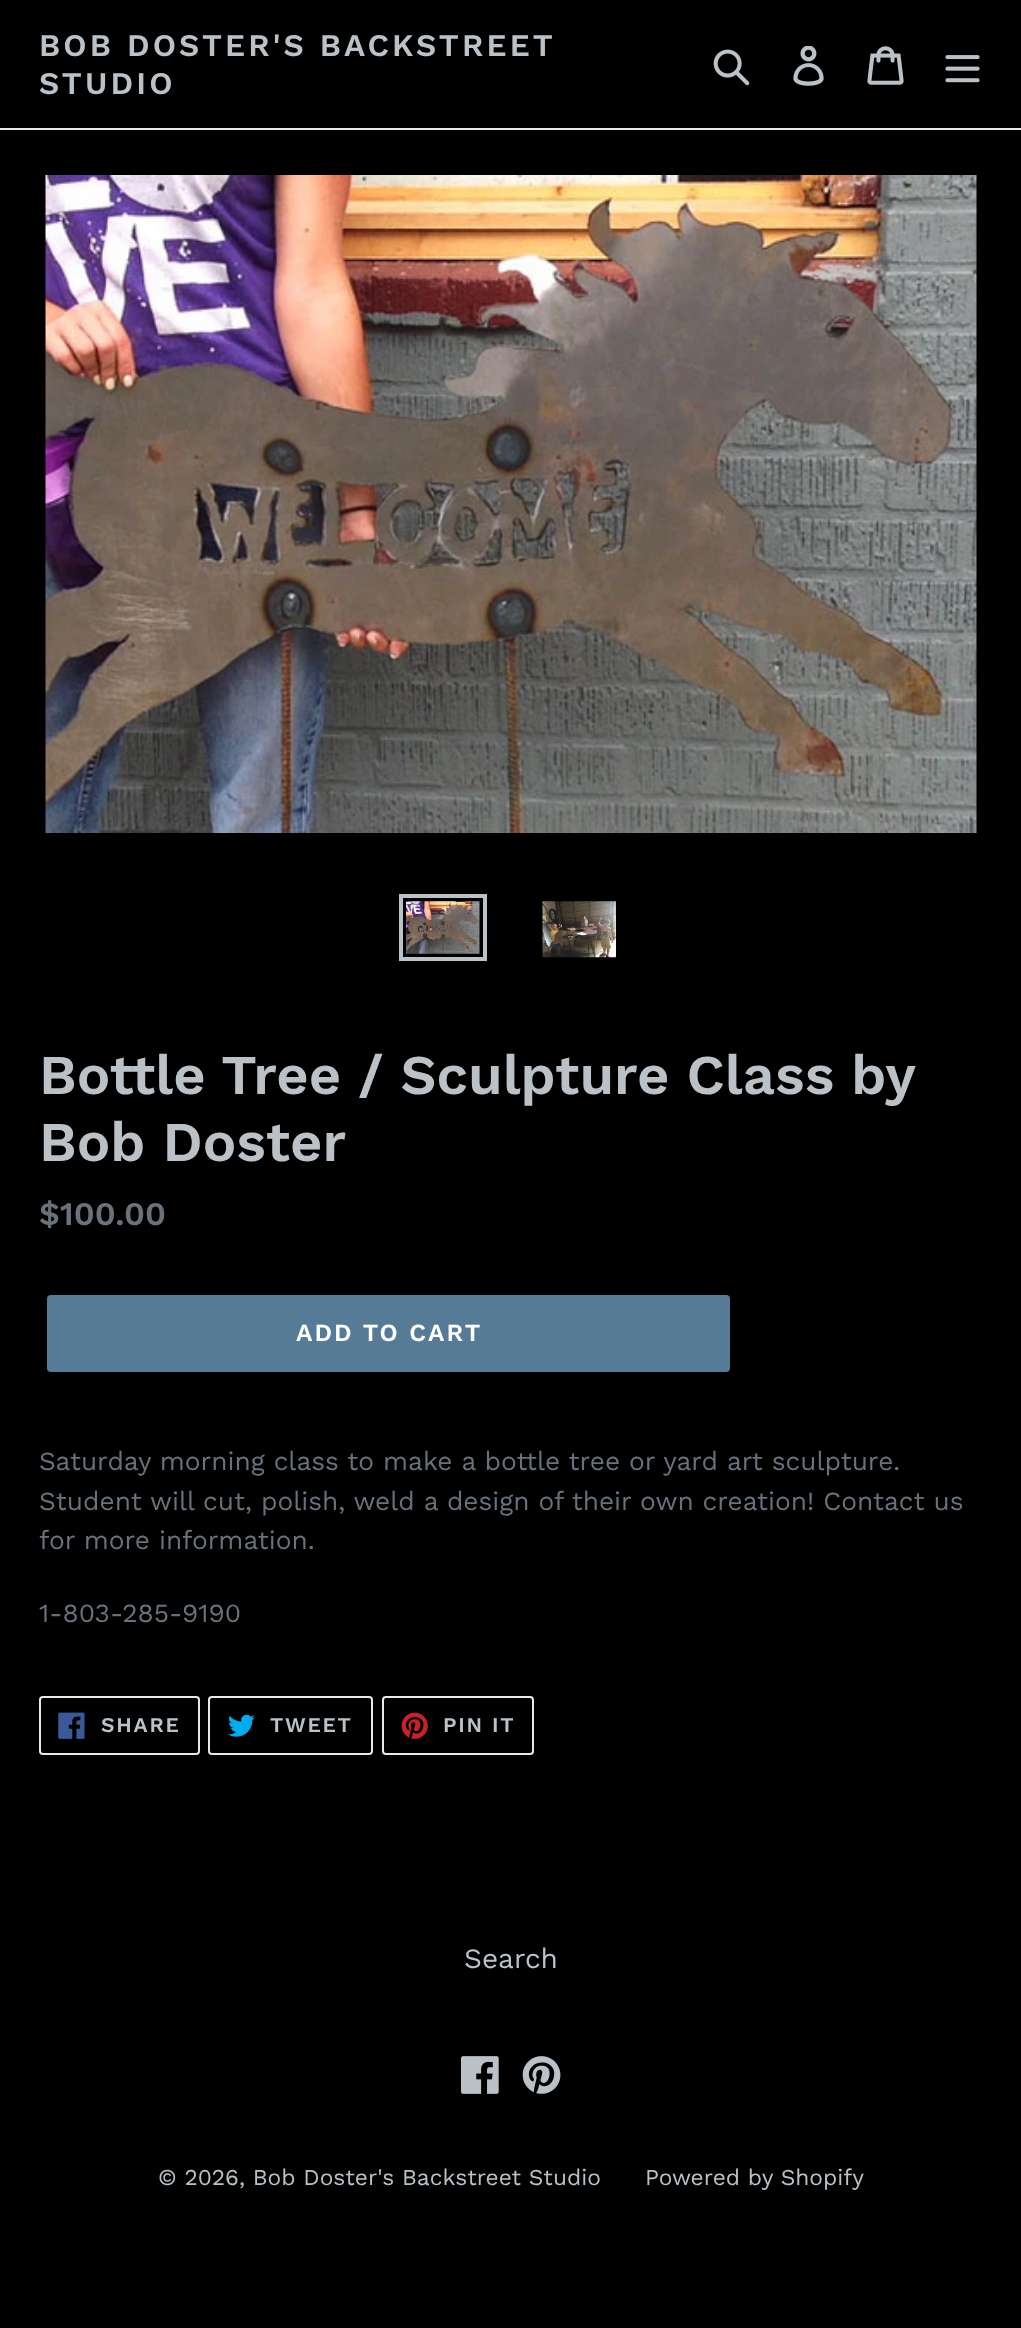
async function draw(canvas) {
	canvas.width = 1021;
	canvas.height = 2328;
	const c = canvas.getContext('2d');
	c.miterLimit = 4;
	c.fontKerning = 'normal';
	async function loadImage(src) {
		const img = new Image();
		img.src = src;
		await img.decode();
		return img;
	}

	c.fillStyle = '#000';
	c.fillRect(0, 0, 1021, 2328);
	c.fillStyle = '#e8e9eb';
	c.fillRect(0, 128, 1021, 2);
	c.letterSpacing = '3.15px';
	c.font = '600 31.5px Work Sans';
	c.fillStyle = '#bac2c8';
	c.fillText('BOB DOSTER\'S BACKSTREET', 39, 56);
	c.fillText('STUDIO', 39, 94);
	c.drawImage(await loadImage('img1.png'), 713, 49, 37, 37);
	c.drawImage(await loadImage('img2.png'), 793, 46, 31, 40);
	c.drawImage(await loadImage('img3.png'), 867, 46, 37, 39);
	c.drawImage(await loadImage('img4.png'), 945, 55, 35, 28);
	c.drawImage(await loadImage('img5.png'), 45, 175, 932, 658);
	c.strokeStyle = '#bac2c8';
	c.lineWidth = 4;
	c.strokeRect(401, 896, 84, 63);
	c.drawImage(await loadImage('img6.png'), 406, 901, 74, 53);
	c.drawImage(await loadImage('img7.png'), 542, 901, 74, 57);
	c.letterSpacing = '0px';
	c.wordSpacing = '-0.25px';
	c.font = '600 56px Work Sans';
	c.fillText('Bottle Tree / Sculpture Class by', 39, 1094);
	c.wordSpacing = '0px';
	c.fillText('Bob Doster', 39, 1161);
	c.font = '600 33px Work Sans';
	c.fillStyle = '#69727b';
	c.fillText('$100.00', 39, 1225);
	c.fillStyle = '#557b97';
	c.beginPath();
	c.roundRect(47, 1295, 683, 77, 4);
	c.fill();
	c.letterSpacing = '2px';
	c.font = '600 24.5px Work Sans';
	c.fillStyle = '#fff';
	c.fillText('ADD TO CART', 296, 1341);
	c.letterSpacing = '0px';
	c.font = '26.25px Work Sans';
	c.fillStyle = '#69727b';
	for (const [text, x, y] of [
		['Saturday morning class to make a bottle tree or yard art sculpture.', 39, 1470],
		['Student will cut, polish, weld a design of their own creation! Contact us', 39, 1510],
		['for more information.', 39, 1549],
		['1-803-285-9190', 39, 1622],
	]) {
		c.fillText(text, x, y);
	}
	c.beginPath();
	c.roundRect(40, 1697, 159, 57, 3);
	c.strokeStyle = '#e8e9eb';
	c.lineWidth = 2;
	c.stroke();
	c.drawImage(await loadImage('img8.png'), 58, 1712, 27, 27);
	c.letterSpacing = '1.75px';
	c.font = '600 21px Work Sans';
	c.fillStyle = '#bac2c8';
	c.fillText('SHARE', 101, 1732);
	c.beginPath();
	c.roundRect(209, 1697, 163, 57, 3);
	c.stroke();
	c.drawImage(await loadImage('img9.png'), 228, 1714, 27, 23);
	c.fillText('TWEET', 270, 1732);
	c.beginPath();
	c.roundRect(383, 1697, 150, 57, 3);
	c.stroke();
	c.drawImage(await loadImage('img10.png'), 401, 1712, 27, 27);
	c.fillText('PIN IT', 443, 1732);
	c.letterSpacing = '0px';
	c.font = '28px Work Sans';
	c.fillText('Search', 464, 1968);
	c.drawImage(await loadImage('img11.png'), 461, 2056, 38, 38);
	c.drawImage(await loadImage('img12.png'), 522, 2056, 39, 38);
	c.font = '22.75px Work Sans';
	c.fillText('© 2026, Bob Doster\'s Backstreet Studio', 158, 2185);
	c.fillText('Powered by Shopify', 645, 2185);
}

draw(document.querySelector('canvas'));
